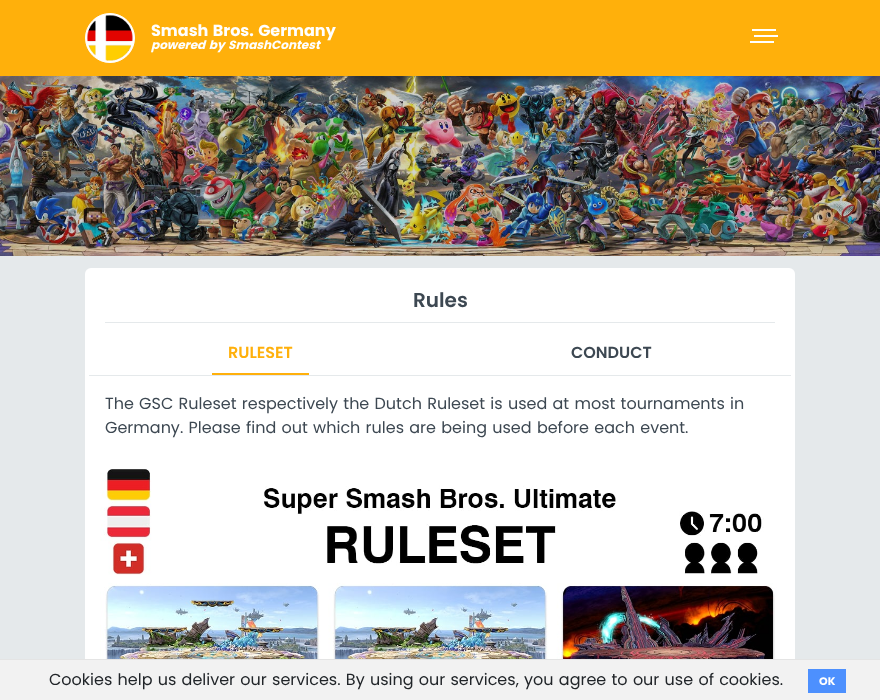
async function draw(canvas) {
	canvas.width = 880;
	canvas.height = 700;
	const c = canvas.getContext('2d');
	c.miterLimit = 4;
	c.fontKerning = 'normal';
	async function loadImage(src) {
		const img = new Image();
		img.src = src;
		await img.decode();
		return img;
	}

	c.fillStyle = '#e5e9eb';
	c.fillRect(0, 0, 880, 700);
	c.fillStyle = '#ffb00b';
	c.fillRect(0, 0, 880, 76);
	c.fillStyle = '#fff';
	c.beginPath();
	c.arc(110, 38, 24.5, 0, 2 * Math.PI);
	c.fill();
	c.strokeStyle = '#fff';
	c.stroke();
	c.drawImage(await loadImage('img1.png'), 87, 15, 46, 46);
	c.wordSpacing = '1px';
	c.font = 'bold 16px Poppins';
	c.fillText('Smash Bros. Germany', 151, 36);
	c.font = 'italic bold 12px Poppins';
	c.fillText('powered by SmashContest', 151, 49);
	for (const [x, y, w, h, color] of [
		[752, 29, 24, 2, '#fff'],
		[754, 35, 24, 2, '#fff'],
		[750, 41, 24, 2, '#fff'],
	]) {
		c.fillStyle = color;
		c.fillRect(x, y, w, h);
	}
	c.drawImage(await loadImage('img2.png'), 0, 76, 880, 180);
	c.beginPath();
	c.roundRect(85, 268, 710, 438, 6);
	c.fill();
	c.fillStyle = '#e5e9eb';
	c.fillRect(105, 322, 670, 1);
	c.wordSpacing = '0px';
	c.font = '600 20px Poppins';
	c.fillStyle = '#3d4852';
	c.fillText('Rules', 413, 307);
	c.fillStyle = '#e5e9eb';
	c.fillRect(89, 375, 702, 1);
	c.fillStyle = '#ffb00b';
	c.fillRect(212, 373, 97, 2);
	c.font = '600 16px Poppins';
	c.fillText('RULESET', 228, 358);
	c.fillStyle = '#3d4852';
	c.fillText('CONDUCT', 571, 358);
	c.wordSpacing = '1px';
	c.font = '16px Poppins';
	c.fillText('The GSC Ruleset respectively the Dutch Ruleset is used at most tournaments in', 105, 409);
	c.fillText('Germany. Please find out which rules are being used before each event.', 105, 433);
	c.drawImage(await loadImage('img3.png'), 100, 469, 677, 190);
	c.fillStyle = '#f2f2f2';
	c.fillRect(0, 660, 880, 40);
	c.fillStyle = '#e4e4e4';
	c.fillRect(0, 659, 880, 1);
	c.fillStyle = '#212529';
	c.fillText('Cookies help us deliver our services. By using our services, you agree to our use of cookies.', 49, 685);
	c.fillStyle = '#4d90fe';
	c.fillRect(808, 669, 38, 24);
	c.wordSpacing = '0px';
	c.font = 'bold 11px Poppins';
	c.fillStyle = '#fff';
	c.fillText('OK', 819, 685);
}

draw(document.querySelector('canvas'));
